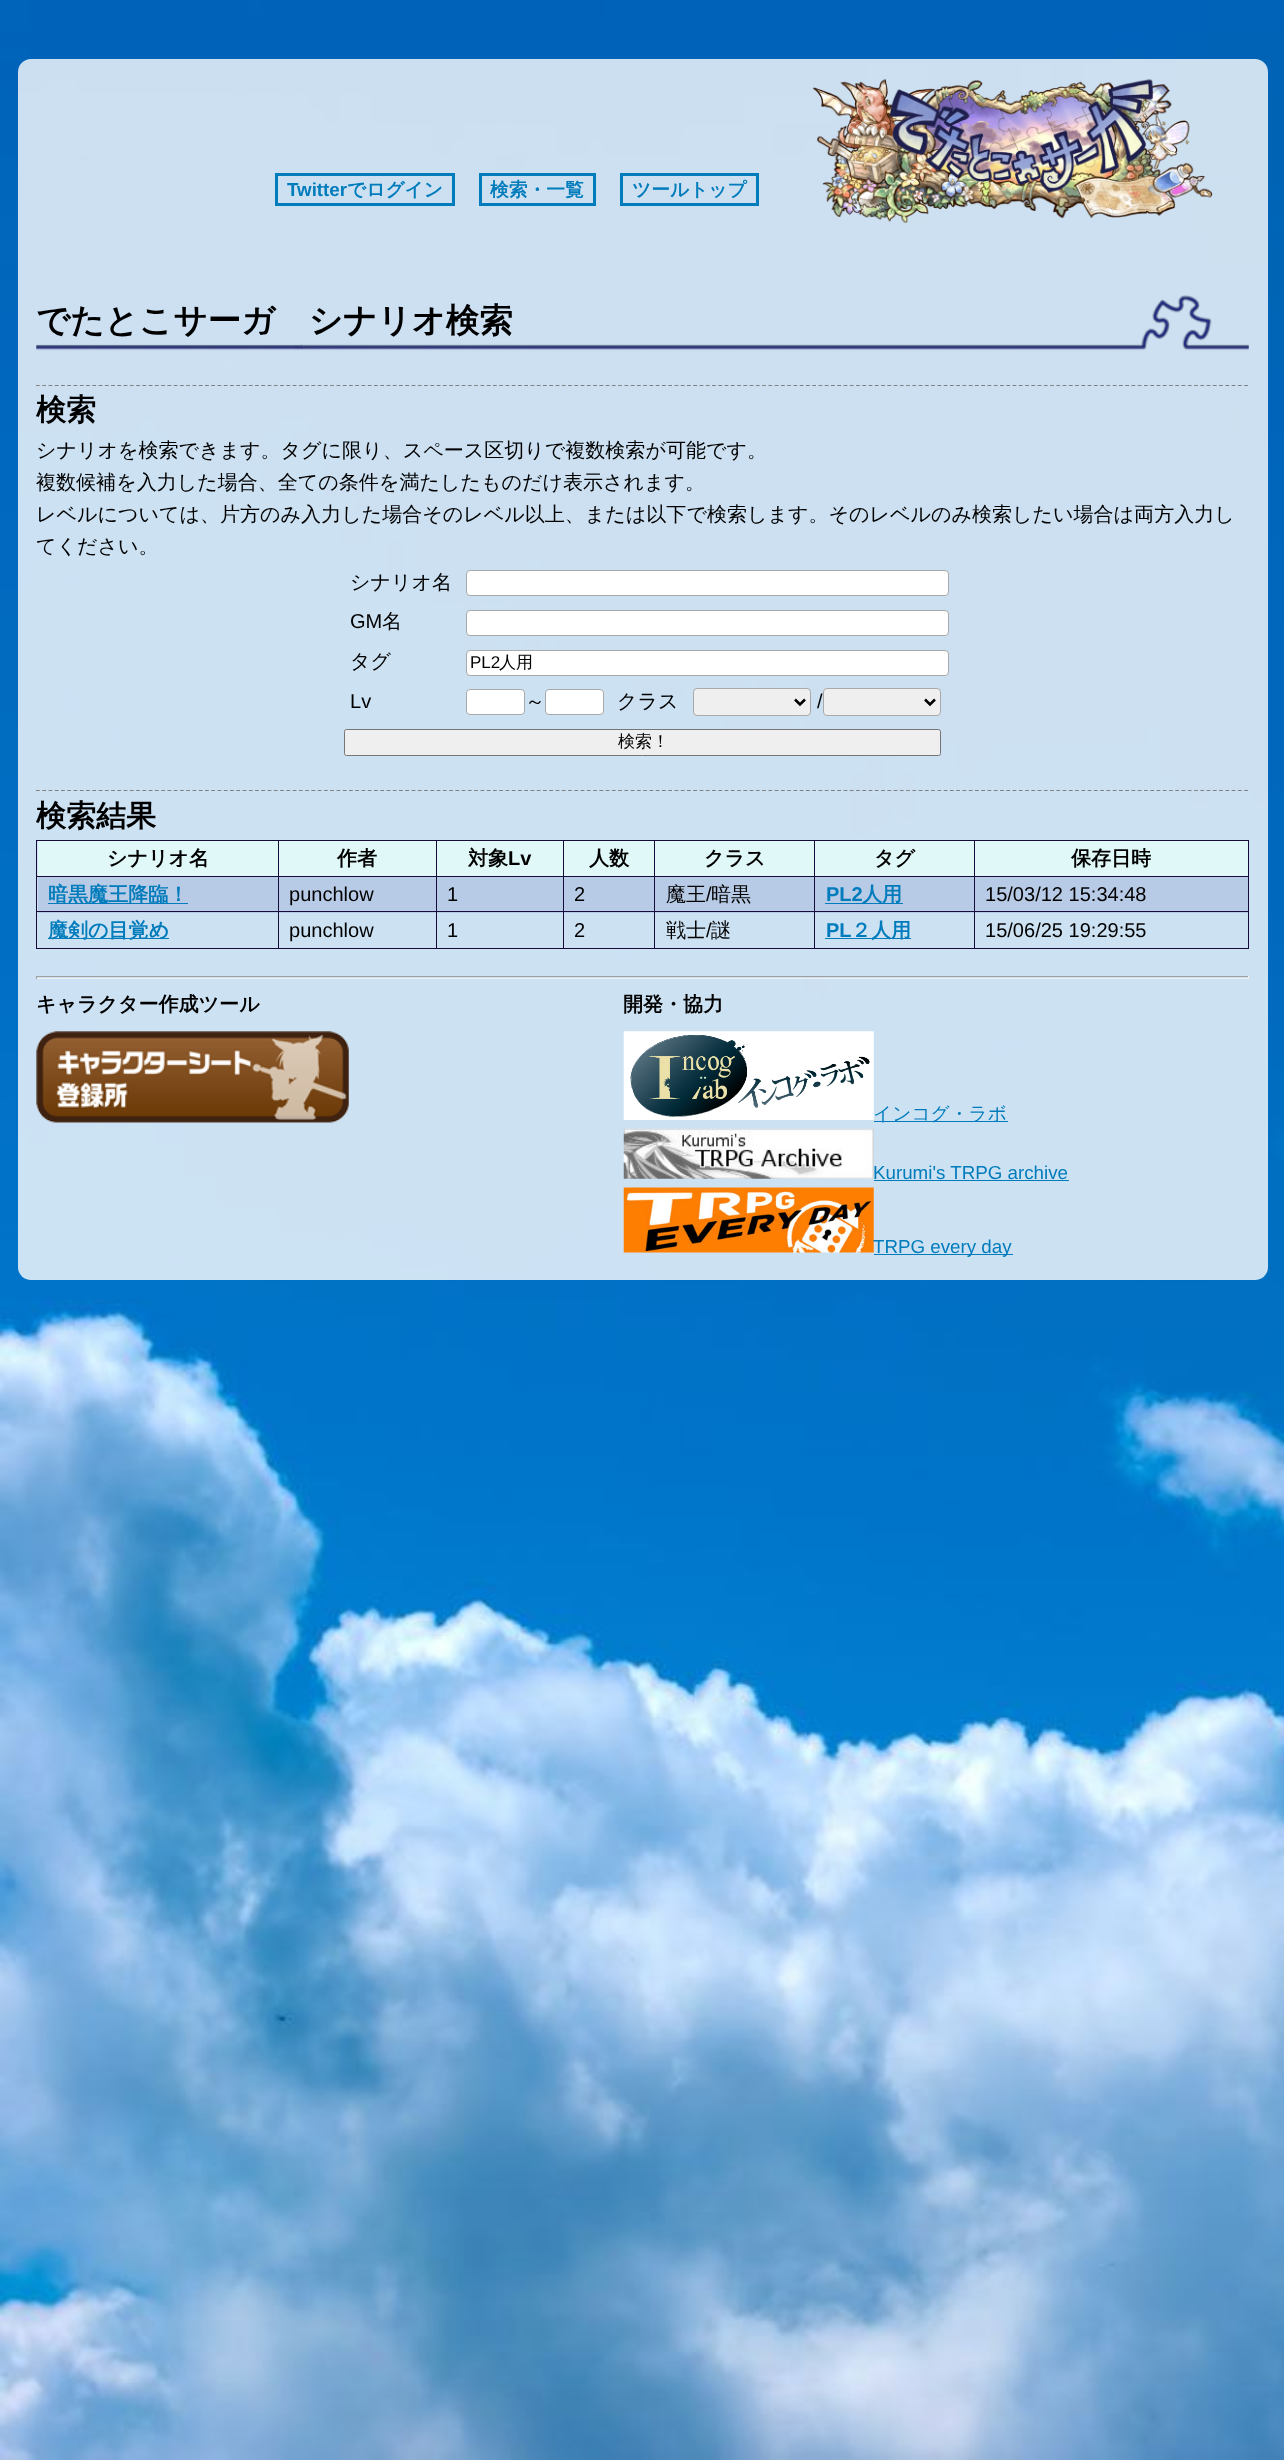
async function draw(canvas) {
	canvas.width = 1284;
	canvas.height = 2460;
	const c = canvas.getContext('2d');
	c.miterLimit = 4;
	c.fontKerning = 'normal';
	async function loadImage(src) {
		const img = new Image();
		img.src = src;
		await img.decode();
		return img;
	}

	c.fillStyle = '#fff';
	c.fillRect(0, 0, 1284, 2460);
	c.drawImage(await loadImage('img1.png'), 0, 0, 1284, 2460);
	c.fillStyle = '#ffffffcc';
	c.beginPath();
	c.roundRect(18, 59, 1250, 1221, 13);
	c.fill();
	c.strokeStyle = '#007bbb';
	c.lineWidth = 3;
	c.strokeRect(276.5, 174.5, 177, 30);
	c.font = 'bold 18.75px Liberation Sans';
	c.fillStyle = '#007bbb';
	c.fillText('Twitter', 287, 196);
	c.font = 'bold 18.75px WenQuanYi Zen Hei';
	c.fillText('でログイン', 347, 196);
	c.strokeRect(480.5, 174.5, 114, 30);
	c.fillText('検索・一覧', 490, 196);
	c.strokeRect(621.5, 174.5, 136, 30);
	c.fillText('ツールトップ', 632, 196);
	c.drawImage(await loadImage('img2.png'), 812, 79, 401, 144);
	c.drawImage(await loadImage('img3.png'), 36, 295, 1213, 56);
	c.font = 'bold 33.5px WenQuanYi Zen Hei';
	c.fillStyle = '#000';
	c.fillText('でたとこサーガ　シナリオ検索', 36, 332);
	c.beginPath();
	c.moveTo(36, 385.5);
	c.lineTo(1249, 385.5);
	c.strokeStyle = '#808080';
	c.lineWidth = 1.2;
	c.setLineDash([3.75, 2.51]);
	c.stroke();
	c.font = 'bold 30px WenQuanYi Zen Hei';
	c.fillText('検索', 36, 420);
	c.font = '500 20.05px WenQuanYi Zen Hei';
	for (const [text, x, y] of [
		['シナリオを検索できます。タグに限り、スペース区切りで複数検索が可能です。', 36, 457],
		['複数候補を入力した場合、全ての条件を満たしたものだけ表示されます。', 36, 489],
		['レベルについては、片方のみ入力した場合そのレベル以上、または以下で検索します。そのレベルのみ検索したい場合は両方入力し', 36, 521],
		['てください。', 36, 553],
		['シナリオ名', 350, 589],
	]) {
		c.fillText(text, x, y);
	}
	c.fillStyle = '#fff';
	c.beginPath();
	c.roundRect(466.5, 570.5, 482, 25, 3.5);
	c.fill();
	c.strokeStyle = '#a9a9a9';
	c.lineWidth = 1;
	c.setLineDash([]);
	c.stroke();
	c.font = '20.05px Liberation Sans';
	c.fillStyle = '#000';
	c.fillText('GM', 350, 628);
	c.font = '500 20.05px WenQuanYi Zen Hei';
	c.fillText('名', 382, 628);
	c.fillStyle = '#fff';
	c.beginPath();
	c.roundRect(466.5, 610.5, 482, 25, 3.5);
	c.fill();
	c.stroke();
	c.fillStyle = '#000';
	c.fillText('タグ', 350, 668);
	c.fillStyle = '#fff';
	c.beginPath();
	c.roundRect(466.5, 650.5, 482, 25, 3.5);
	c.fill();
	c.stroke();
	c.font = '17px Liberation Sans';
	c.fillStyle = '#000';
	c.fillText('PL2', 470, 668);
	c.font = '500 17px WenQuanYi Zen Hei';
	c.fillText('人用', 499, 668);
	c.font = '20.05px Liberation Sans';
	c.fillText('Lv', 350, 708);
	c.fillStyle = '#fff';
	c.beginPath();
	c.roundRect(466.5, 689.5, 58, 25, 3.5);
	c.fill();
	c.stroke();
	c.font = '500 20.05px WenQuanYi Zen Hei';
	c.fillStyle = '#000';
	c.fillText('～', 525, 708);
	c.fillStyle = '#fff';
	c.beginPath();
	c.roundRect(545.5, 689.5, 58, 25, 3.5);
	c.fill();
	c.stroke();
	c.fillStyle = '#000';
	c.fillText('クラス', 617, 708);
	c.fillStyle = '#efefef';
	c.beginPath();
	c.roundRect(693.5, 688.5, 117, 27, 3.5);
	c.fill();
	c.stroke();
	c.beginPath();
	c.moveTo(795, 699.5);
	c.lineTo(800, 704.5);
	c.lineTo(805, 699.5);
	c.strokeStyle = '#000';
	c.lineWidth = 2.5;
	c.stroke();
	c.font = '20.05px Liberation Sans';
	c.fillStyle = '#000';
	c.fillText('/', 817, 708);
	c.fillStyle = '#efefef';
	c.beginPath();
	c.roundRect(823.5, 688.5, 117, 27, 3.5);
	c.fill();
	c.strokeStyle = '#a9a9a9';
	c.lineWidth = 1;
	c.stroke();
	c.beginPath();
	c.moveTo(925, 699.5);
	c.lineTo(930, 704.5);
	c.lineTo(935, 699.5);
	c.strokeStyle = '#000';
	c.lineWidth = 2.5;
	c.stroke();
	c.beginPath();
	c.roundRect(344.5, 729.5, 596, 26, 2);
	c.fill();
	c.strokeStyle = '#767676';
	c.lineWidth = 1;
	c.stroke();
	c.font = '500 17px WenQuanYi Zen Hei';
	c.fillStyle = '#000';
	c.fillText('検索！', 618, 747);
	c.beginPath();
	c.moveTo(36, 790.5);
	c.lineTo(1249, 790.5);
	c.strokeStyle = '#808080';
	c.lineWidth = 1.2;
	c.setLineDash([3.75, 2.51]);
	c.stroke();
	c.font = 'bold 30px WenQuanYi Zen Hei';
	c.fillText('検索結果', 36, 826);
	for (const [x, y, w, h, color] of [
		[36, 840, 1213, 1, '#170b3b'],
		[36, 876, 1213, 1, '#170b3b'],
		[38, 877, 1210, 36, '#b8cbe6'],
		[36, 911, 1213, 1, '#170b3b'],
		[1248, 911, 1, 38, '#170b3b'],
		[1248, 876, 1, 37, '#170b3b'],
		[1248, 840, 1, 38, '#170b3b'],
		[36, 948, 1213, 1, '#170b3b'],
		[36, 911, 1, 38, '#170b3b'],
		[36, 876, 1, 37, '#170b3b'],
		[36, 840, 1, 38, '#170b3b'],
		[38, 841, 240, 35, '#e0f8f7'],
	]) {
		c.fillStyle = color;
		c.fillRect(x, y, w, h);
	}
	c.font = 'bold 20.05px WenQuanYi Zen Hei';
	c.fillStyle = '#000';
	c.fillText('シナリオ名', 107, 865);
	c.fillStyle = '#e0f8f7';
	c.fillRect(279, 841, 157, 35);
	c.fillStyle = '#000';
	c.fillText('作者', 337, 865);
	c.fillStyle = '#e0f8f7';
	c.fillRect(437, 841, 126, 35);
	c.fillStyle = '#000';
	c.fillText('対象', 468, 865);
	c.font = 'bold 20.05px Liberation Sans';
	c.fillText('Lv', 508, 865);
	c.fillStyle = '#e0f8f7';
	c.fillRect(564, 841, 90, 35);
	c.font = 'bold 20.05px WenQuanYi Zen Hei';
	c.fillStyle = '#000';
	c.fillText('人数', 589, 865);
	c.fillStyle = '#e0f8f7';
	c.fillRect(655, 841, 159, 35);
	c.fillStyle = '#000';
	c.fillText('クラス', 704, 865);
	c.fillStyle = '#e0f8f7';
	c.fillRect(815, 841, 159, 35);
	c.fillStyle = '#000';
	c.fillText('タグ', 874, 865);
	c.fillStyle = '#e0f8f7';
	c.fillRect(975, 841, 273, 35);
	c.fillStyle = '#000';
	c.fillText('保存日時', 1071, 865);
	c.fillStyle = '#007bbb';
	c.fillRect(48, 903, 140, 1);
	c.fillText('暗黒魔王降臨！', 48, 901);
	c.font = '20.05px Liberation Sans';
	c.fillStyle = '#000';
	for (const [text, x, y] of [
		['punchlow', 289, 901],
		['1', 447, 901],
		['2', 574, 901],
	]) {
		c.fillText(text, x, y);
	}
	c.font = '500 20.05px WenQuanYi Zen Hei';
	c.fillText('魔王', 666, 901);
	c.font = '20.05px Liberation Sans';
	c.fillText('/', 706, 901);
	c.font = '500 20.05px WenQuanYi Zen Hei';
	c.fillText('暗黒', 711, 901);
	c.font = 'bold 20.05px Liberation Sans';
	c.fillStyle = '#007bbb';
	c.fillText('PL2', 826, 901);
	c.fillRect(825, 903, 78, 1);
	c.font = 'bold 20.05px WenQuanYi Zen Hei';
	c.fillText('人用', 862, 901);
	c.font = '20.05px Liberation Sans';
	c.fillStyle = '#000';
	c.fillText('15/03/12 15:34:48', 985, 901);
	c.fillStyle = '#170b3b';
	c.fillRect(278, 840, 1, 109);
	c.fillStyle = '#007bbb';
	c.fillRect(48, 938, 121, 1);
	c.font = 'bold 20.05px WenQuanYi Zen Hei';
	c.fillText('魔剣の目覚め', 48, 937);
	c.fillStyle = '#170b3b';
	c.fillRect(436, 840, 1, 109);
	c.font = '20.05px Liberation Sans';
	c.fillStyle = '#000';
	c.fillText('punchlow', 289, 937);
	c.fillStyle = '#170b3b';
	c.fillRect(563, 840, 1, 109);
	c.fillStyle = '#000';
	c.fillText('1', 447, 937);
	c.fillStyle = '#170b3b';
	c.fillRect(654, 840, 1, 109);
	c.fillStyle = '#000';
	c.fillText('2', 574, 937);
	c.fillStyle = '#170b3b';
	c.fillRect(814, 840, 1, 109);
	c.font = '500 20.05px WenQuanYi Zen Hei';
	c.fillStyle = '#000';
	c.fillText('戦士', 666, 937);
	c.font = '20.05px Liberation Sans';
	c.fillText('/', 706, 937);
	c.font = '500 20.05px WenQuanYi Zen Hei';
	c.fillText('謎', 711, 937);
	c.fillStyle = '#170b3b';
	c.fillRect(974, 840, 1, 109);
	c.font = 'bold 20.05px Liberation Sans';
	c.fillStyle = '#007bbb';
	c.fillText('PL', 826, 937);
	c.fillRect(825, 938, 86, 1);
	c.font = 'bold 20.05px WenQuanYi Zen Hei';
	c.fillText('２人用', 851, 937);
	c.font = '20.05px Liberation Sans';
	c.fillStyle = '#000';
	c.fillText('15/06/25 19:29:55', 985, 937);
	for (const [x, y, w, h, color] of [
		[36, 976, 1213, 1, '#9f9f9f'],
		[1248, 976, 1, 3, '#eee'],
		[36, 978, 1213, 1, '#eee'],
		[36, 976, 1, 3, '#9f9f9f'],
	]) {
		c.fillStyle = color;
		c.fillRect(x, y, w, h);
	}
	c.font = 'bold 20.05px WenQuanYi Zen Hei';
	c.fillStyle = '#000';
	c.fillText('キャラクター作成ツール', 36, 1011);
	c.drawImage(await loadImage('img4.png'), 36, 1031, 313, 92);
	c.fillText('開発・協力', 623, 1011);
	c.drawImage(await loadImage('img5.png'), 623, 1031, 251, 89);
	c.fillStyle = '#007bbb';
	c.fillRect(874, 1121, 134, 1);
	c.font = '500 18.75px WenQuanYi Zen Hei';
	c.fillText('インコグ・ラボ', 873, 1120);
	c.drawImage(await loadImage('img6.png'), 623, 1128, 251, 51);
	c.font = '18.75px Liberation Sans';
	c.fillText('Kurumi\'s TRPG archive', 873, 1179);
	c.fillRect(874, 1180, 195, 1);
	c.drawImage(await loadImage('img7.png'), 623, 1187, 251, 66);
	c.fillRect(874, 1254, 139, 1);
	c.fillText('TRPG every day', 873, 1253);
}

draw(document.querySelector('canvas'));
